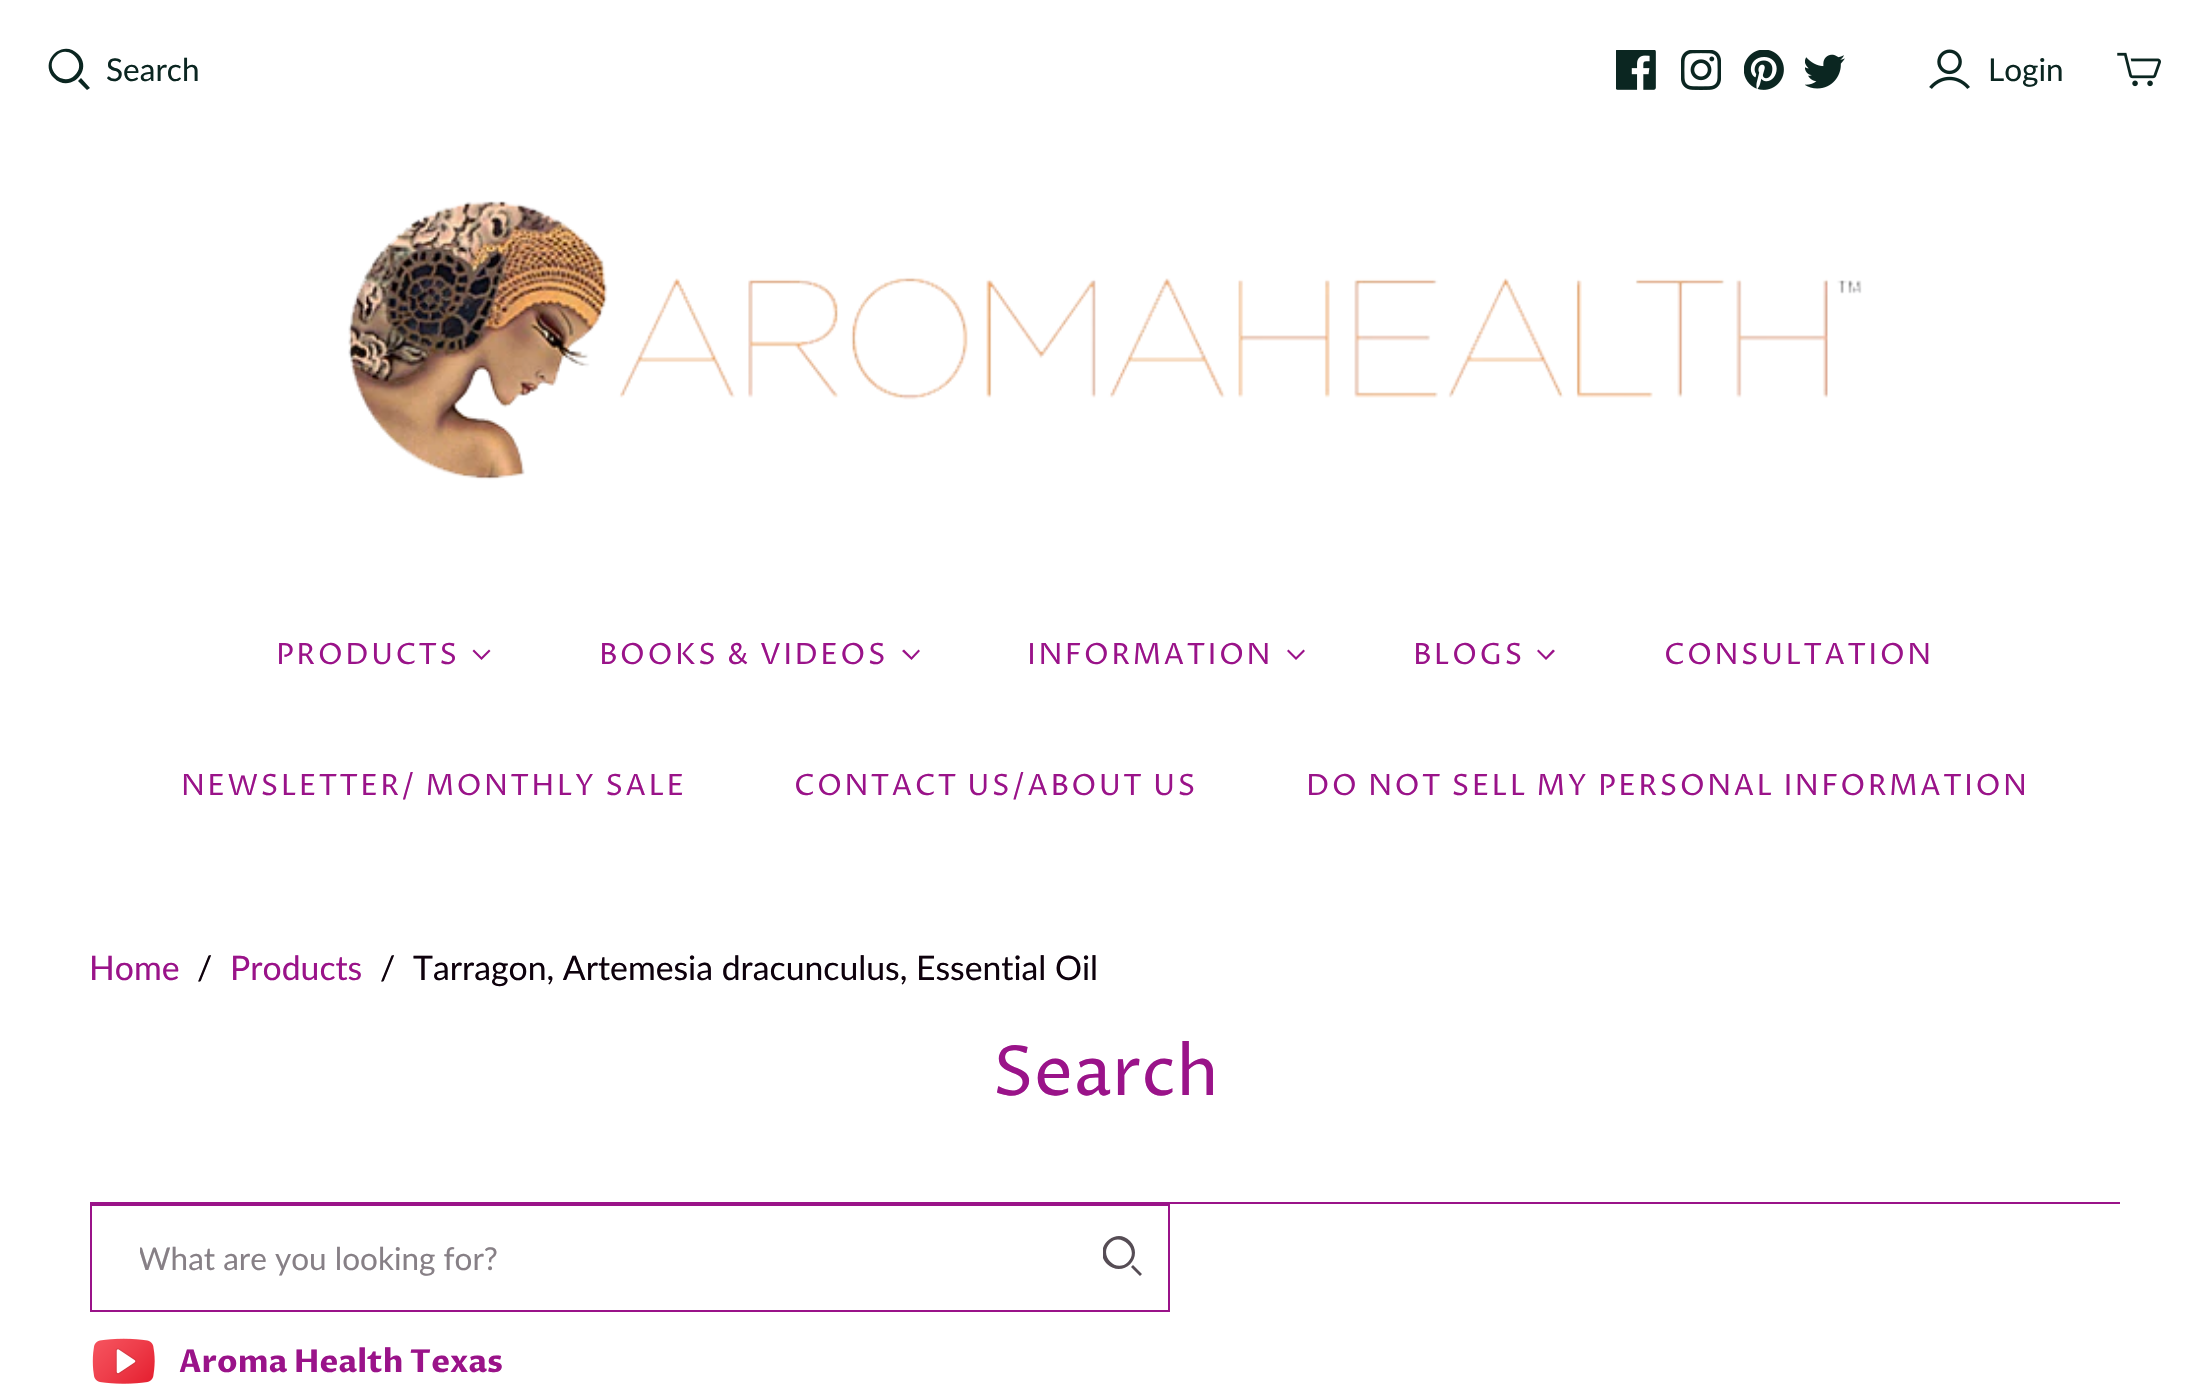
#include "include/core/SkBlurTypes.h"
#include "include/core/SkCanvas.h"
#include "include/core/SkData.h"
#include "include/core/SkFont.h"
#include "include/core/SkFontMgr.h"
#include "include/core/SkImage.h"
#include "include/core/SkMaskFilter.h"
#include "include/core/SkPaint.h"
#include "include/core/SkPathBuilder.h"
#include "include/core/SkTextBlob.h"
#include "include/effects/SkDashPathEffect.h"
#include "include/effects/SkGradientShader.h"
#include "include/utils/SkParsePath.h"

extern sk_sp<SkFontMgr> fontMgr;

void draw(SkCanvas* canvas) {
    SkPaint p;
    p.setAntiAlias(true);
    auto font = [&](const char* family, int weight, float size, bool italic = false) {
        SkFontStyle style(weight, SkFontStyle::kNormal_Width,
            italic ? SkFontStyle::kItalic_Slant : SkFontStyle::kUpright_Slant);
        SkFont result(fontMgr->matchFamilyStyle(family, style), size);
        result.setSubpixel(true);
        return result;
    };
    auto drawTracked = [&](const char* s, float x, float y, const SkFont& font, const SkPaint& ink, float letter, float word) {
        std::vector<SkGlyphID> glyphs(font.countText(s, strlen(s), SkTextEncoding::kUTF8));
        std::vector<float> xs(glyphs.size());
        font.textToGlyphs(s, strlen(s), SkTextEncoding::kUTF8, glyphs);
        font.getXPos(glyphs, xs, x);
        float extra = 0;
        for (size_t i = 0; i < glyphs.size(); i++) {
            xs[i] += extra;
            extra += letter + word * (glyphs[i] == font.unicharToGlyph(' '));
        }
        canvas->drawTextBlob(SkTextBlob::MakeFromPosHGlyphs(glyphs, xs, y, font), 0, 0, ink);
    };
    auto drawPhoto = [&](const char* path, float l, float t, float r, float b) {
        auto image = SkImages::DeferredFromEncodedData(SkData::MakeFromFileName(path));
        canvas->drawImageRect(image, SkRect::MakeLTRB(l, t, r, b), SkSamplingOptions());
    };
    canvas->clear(0xFFFFFFFF);
    p.setColor(0xFF0B2621);
    canvas->drawPath(SkPathBuilder(SkPathFillType::kEvenOdd).moveTo(56, 56).cubicTo(43, 68, 63, 88, 75, 75).cubicTo(88, 63, 68, 43, 56, 56).close().moveTo(54, 78).cubicTo(38, 62, 62, 38, 78, 54).cubicTo(94, 70, 70, 94, 54, 78).close().moveTo(87, 90).lineTo(78, 81).lineTo(81, 78).lineTo(90, 88).close().detach(), p);
    auto font1 = font("Lato", 400, 31.5f);
    canvas->drawString("Search", 106, 81, font1, p);
    drawPhoto("media/1.png", 1616, 50, 1656, 90);
    drawPhoto("media/2.png", 1681, 50, 1721, 90);
    drawPhoto("media/3.png", 1744, 50, 1784, 90);
    drawPhoto("media/4.png", 1805, 54, 1845, 89);
    drawPhoto("media/5.png", 1929, 49, 1970, 89);
    canvas->drawString("Login", 1988, 81, font1, p);
    drawPhoto("media/6.png", 2117, 52, 2161, 87);
    drawPhoto("media/7.png", 348, 201, 1862, 480);
    auto font2 = font("Proza Libre", 400, 29.25f);
    p.setColor(0xFF9A1389);
    drawTracked("PRODUCTS", 276, 664, font2, p, 2.35f, 0);
    canvas->drawPath(SkPathBuilder().moveTo(472.5f, 651).lineTo(474, 649.5f).lineTo(481.5f, 657).lineTo(489, 649.5f).lineTo(490.5f, 651).lineTo(481.5f, 660).close().detach(), p);
    drawTracked("BOOKS & VIDEOS", 599, 664, font2, p, 2.35f, 0);
    canvas->drawPath(SkPathBuilder().moveTo(902, 651).lineTo(904, 649.5f).lineTo(911.5f, 657).lineTo(918.5f, 649.5f).lineTo(920, 651).lineTo(911.5f, 660).close().detach(), p);
    drawTracked("INFORMATION", 1027, 664, font2, p, 2.35f, 0);
    canvas->drawPath(SkPathBuilder().moveTo(1287, 651).lineTo(1288.5f, 649.5f).lineTo(1296, 657).lineTo(1303.5f, 649.5f).lineTo(1305, 651).lineTo(1296, 660).close().detach(), p);
    drawTracked("BLOGS", 1413, 664, font2, p, 2.35f, 0);
    canvas->drawPath(SkPathBuilder().moveTo(1537, 651).lineTo(1538.5f, 649.5f).lineTo(1546, 657).lineTo(1553, 649.5f).lineTo(1555, 651).lineTo(1546, 660).close().detach(), p);
    {
        const struct { const char* s; float x, y; } items[] = {
            {"CONSULTATION", 1664, 664},
            {"NEWSLETTER/ MONTHLY SALE", 181, 795},
            {"CONTACT US/ABOUT US", 794, 795},
            {"DO NOT SELL MY PERSONAL INFORMATION", 1306, 795},
        };
        for (auto [s, x, y] : items) {
            drawTracked(s, x, y, font2, p, 2.35f, 0);
        }
    }
    auto font3 = font("Lato", 400, 33.75f);
    canvas->drawString("Home", 89, 980, font3, p);
    p.setColor(0xFF0E010C);
    canvas->drawString("/", 197, 980, font3, p);
    p.setColor(0xFF9A1389);
    canvas->drawString("Products", 230, 980, font3, p);
    p.setColor(0xFF0E010C);
    canvas->drawString("/", 380, 980, font3, p);
    canvas->drawString("Tarragon, Artemesia dracunculus, Essential Oil", 413, 980, font3, p);
    p.setColor(0xFF9A1389);
    canvas->drawRect(SkRect::MakeLTRB(90, 1202, 2120, 1204), p);
    auto font4 = font("Proza Libre", 400, 69);
    canvas->drawString("Search", 992, 1095, font4, p);
    p.setStyle(SkPaint::kStroke_Style);
    p.setStrokeWidth(2);
    canvas->drawRect(SkRect::MakeLTRB(91, 1205, 1169, 1311), p);
    canvas->save();
    canvas->clipRect(SkRect::MakeLTRB(140, 1238, 1080, 1276));
    p.setStyle(SkPaint::kFill_Style);
    p.setColor(0xFF878086);
    canvas->drawString("What are you looking for?", 138, 1270, font1, p);
    canvas->restore();
    canvas->save();
    canvas->clipRect(SkRect::MakeLTRB(1103, 1235, 1143, 1278));
    p.setColor(0xFF564D55);
    canvas->drawPath(SkPathBuilder(SkPathFillType::kEvenOdd).moveTo(1110, 1243).cubicTo(1098, 1255, 1116, 1274, 1128, 1262).cubicTo(1140, 1250, 1121, 1232, 1110, 1243).close().moveTo(1107, 1264).cubicTo(1092, 1249, 1115, 1226, 1130, 1241).cubicTo(1145, 1257, 1123, 1279, 1107, 1264).close().moveTo(1140, 1276).lineTo(1131, 1267).lineTo(1133, 1265).lineTo(1142, 1274).close().detach(), p);
    canvas->restore();
    drawPhoto("media/8.png", 92, 1338, 155, 1384);
    auto font5 = font("Proza Libre", 700, 31.5f);
    p.setColor(0xFF9A1389);
    canvas->drawString("Aroma Health Texas", 179, 1372, font5, p);
}
